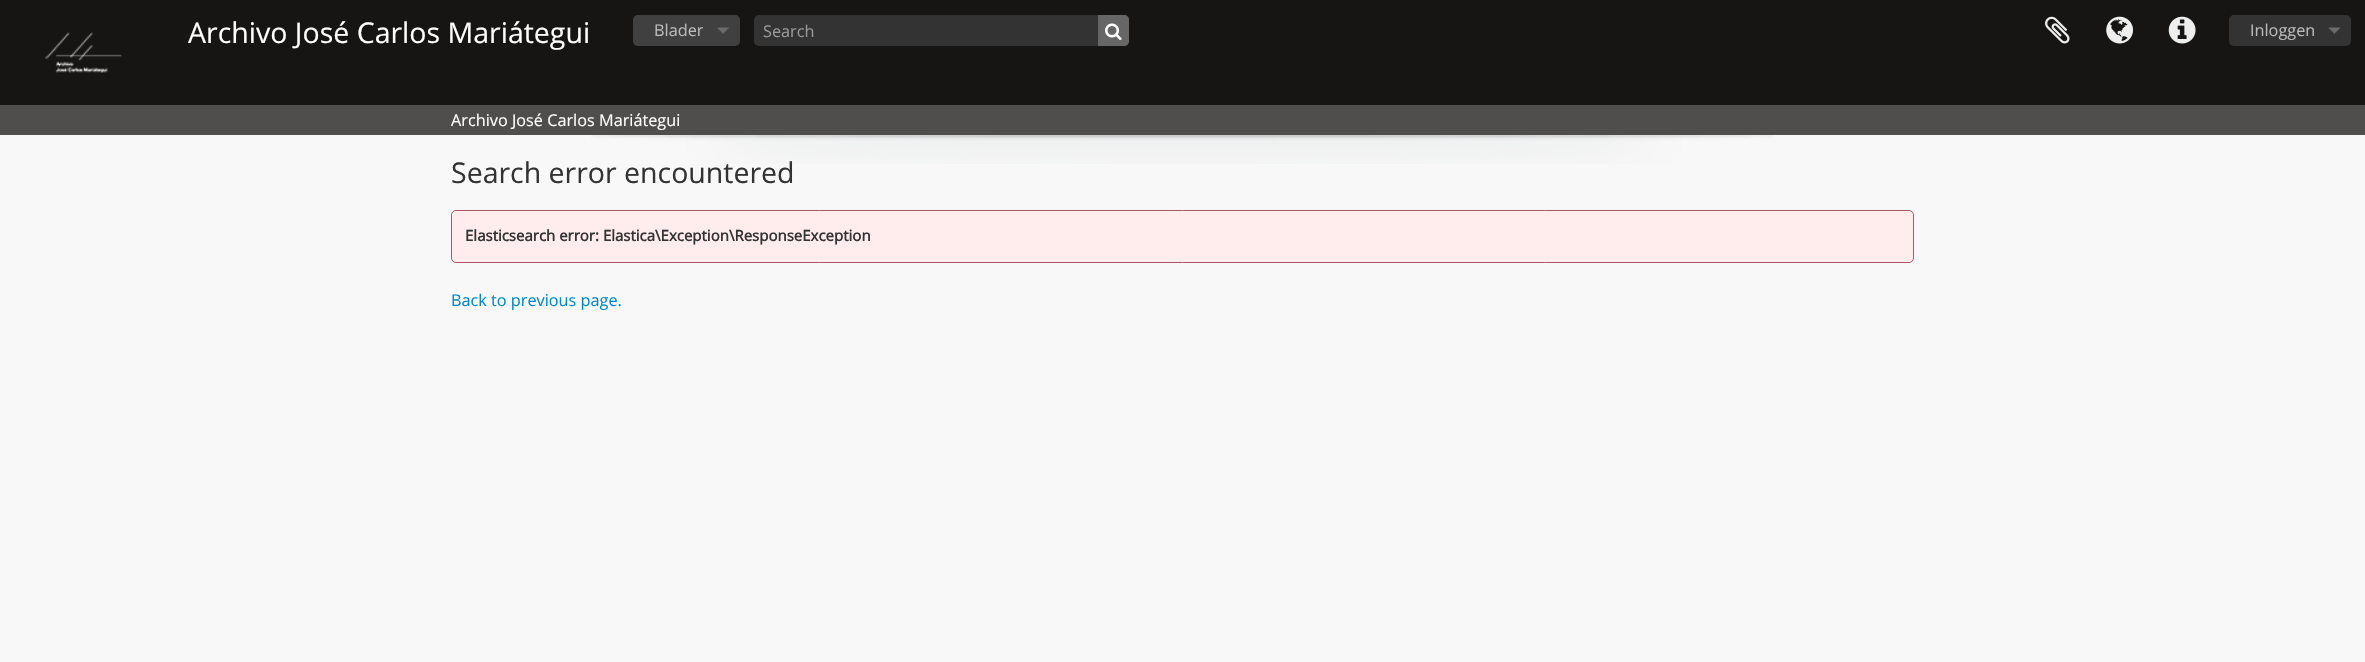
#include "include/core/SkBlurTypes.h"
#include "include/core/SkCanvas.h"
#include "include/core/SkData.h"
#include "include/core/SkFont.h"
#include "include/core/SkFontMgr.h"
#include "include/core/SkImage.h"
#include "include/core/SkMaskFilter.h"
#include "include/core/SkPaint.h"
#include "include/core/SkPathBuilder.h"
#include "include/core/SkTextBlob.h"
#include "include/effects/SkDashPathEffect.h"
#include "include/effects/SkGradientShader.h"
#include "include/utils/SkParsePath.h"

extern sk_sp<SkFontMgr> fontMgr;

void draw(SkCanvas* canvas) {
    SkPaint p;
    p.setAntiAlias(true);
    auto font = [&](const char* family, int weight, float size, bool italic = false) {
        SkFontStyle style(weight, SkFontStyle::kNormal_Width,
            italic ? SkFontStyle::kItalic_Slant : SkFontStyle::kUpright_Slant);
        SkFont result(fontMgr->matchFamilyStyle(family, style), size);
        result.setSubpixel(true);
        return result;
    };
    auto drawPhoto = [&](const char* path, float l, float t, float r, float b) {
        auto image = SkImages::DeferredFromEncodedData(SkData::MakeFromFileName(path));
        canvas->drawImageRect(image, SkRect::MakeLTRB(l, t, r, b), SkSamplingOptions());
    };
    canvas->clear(0xFFF8F8F8);
    p.setColor(0xFF161514);
    canvas->drawRect(SkRect::MakeLTRB(0, 0, 2365, 105), p);
    drawPhoto("media/1.png", 45, 32, 122, 73);
    auto font1 = font("Open Sans", 400, 28.5f);
    p.setColor(0xFFFFFFFF);
    canvas->drawString("Archivo José Carlos Mariátegui", 188, 43, font1, p);
    p.setColor(0xFF404040);
    canvas->drawRoundRect(SkRect::MakeLTRB(633, 15, 740, 46), 5, 5, p);
    drawPhoto("media/2.png", 717, 27, 729, 34);
    auto font2 = font("Open Sans", 400, 16.25f);
    p.setColor(0xFFBBBBBB);
    canvas->drawString("Blader", 654, 36, font2, p);
    p.setColor(0xFF333333);
    canvas->drawRoundRect(SkRect::MakeLTRB(754, 15, 1129, 46), 5, 5, p);
    p.setColor(0x12000000);
    canvas->drawPath(SkPathBuilder().moveTo(759, 16).lineTo(1124, 16).cubicTo(1127, 16, 1129, 18, 1129, 21).lineTo(1129, 20).cubicTo(1129, 17, 1127, 15, 1124, 15).lineTo(759, 15).cubicTo(756, 15, 754, 17, 754, 20).lineTo(754, 21).cubicTo(754, 18, 756, 16, 759, 16).close().detach(), p);
    p.setColor(0xFF999999);
    canvas->drawString("Search", 763, 37, font2, p);
    p.setColor(0xFF666666);
    canvas->drawPath(SkPathBuilder().moveTo(1098, 15).lineTo(1124, 15).cubicTo(1127, 15, 1129, 17, 1129, 20).lineTo(1129, 41).cubicTo(1129, 44, 1127, 46, 1124, 46).lineTo(1098, 46).close().detach(), p);
    drawPhoto("media/3.png", 1105, 23, 1122, 40);
    drawPhoto("media/4.png", 2045, 16, 2070, 44);
    drawPhoto("media/5.png", 2106, 16, 2133, 44);
    drawPhoto("media/6.png", 2168, 16, 2196, 44);
    p.setColor(0xFF333333);
    canvas->drawRoundRect(SkRect::MakeLTRB(2229, 15, 2351, 46), 5, 5, p);
    drawPhoto("media/7.png", 2328, 27, 2341, 34);
    p.setColor(0xFFBBBBBB);
    canvas->drawString("Inloggen", 2250, 36, font2, p);
    p.setColor(0xFF4F4E4D);
    canvas->drawRect(SkRect::MakeLTRB(0, 105, 2365, 135), p);
    p.setColor(0xFFFFFFFF);
    canvas->drawString("Archivo José Carlos Mariátegui", 451, 126, font2, p);
    drawPhoto("media/8.png", 591, 135, 1774, 164);
    p.setColor(0xFF333333);
    canvas->drawString("Search error encountered", 451, 183, font1, p);
    p.setColor(0xFFFFEDED);
    canvas->drawRoundRect(SkRect::MakeLTRB(451.5f, 210.5f, 1913.5f, 262.5f), 4.5f, 4.5f, p);
    p.setStyle(SkPaint::kStroke_Style);
    p.setStrokeWidth(1);
    p.setColor(0xFFAC5562);
    canvas->drawRoundRect(SkRect::MakeLTRB(451.5f, 210.5f, 1913.5f, 262.5f), 4.5f, 4.5f, p);
    auto font3 = font("Open Sans", 700, 15);
    p.setStyle(SkPaint::kFill_Style);
    p.setColor(0xFF333333);
    canvas->drawString("Elasticsearch error: Elastica\\Exception\\ResponseException", 465, 241, font3, p);
    p.setColor(0xFF0088CC);
    canvas->drawString("Back to previous page.", 451, 306, font2, p);
}
